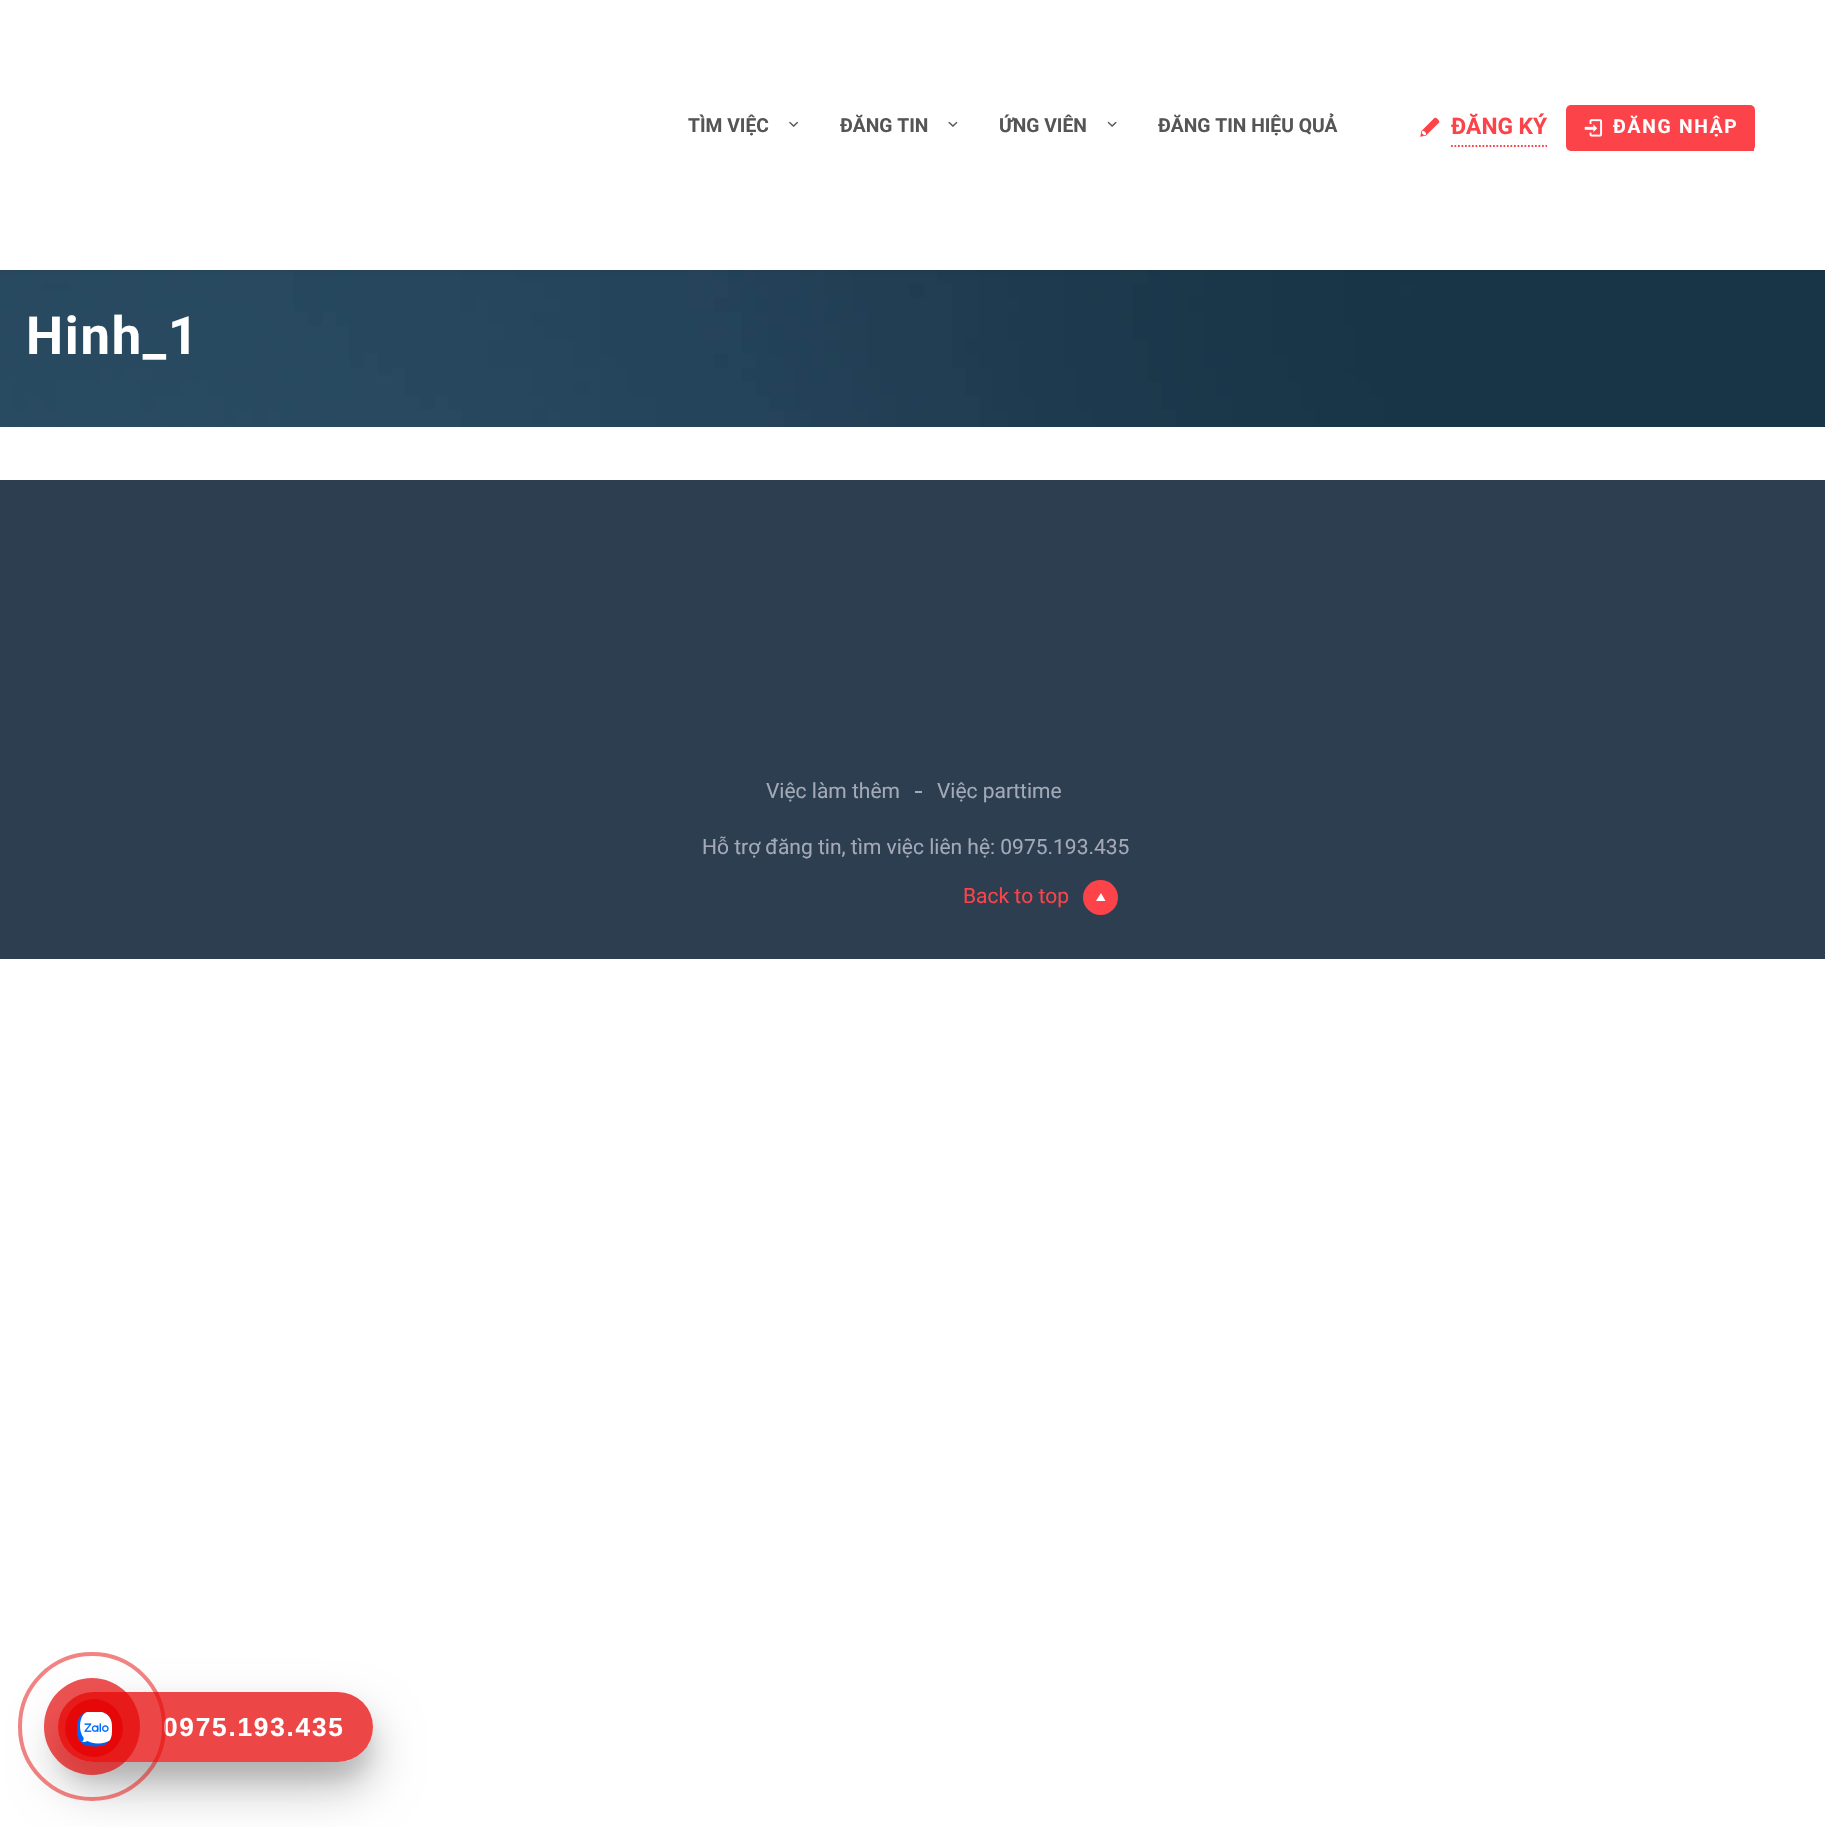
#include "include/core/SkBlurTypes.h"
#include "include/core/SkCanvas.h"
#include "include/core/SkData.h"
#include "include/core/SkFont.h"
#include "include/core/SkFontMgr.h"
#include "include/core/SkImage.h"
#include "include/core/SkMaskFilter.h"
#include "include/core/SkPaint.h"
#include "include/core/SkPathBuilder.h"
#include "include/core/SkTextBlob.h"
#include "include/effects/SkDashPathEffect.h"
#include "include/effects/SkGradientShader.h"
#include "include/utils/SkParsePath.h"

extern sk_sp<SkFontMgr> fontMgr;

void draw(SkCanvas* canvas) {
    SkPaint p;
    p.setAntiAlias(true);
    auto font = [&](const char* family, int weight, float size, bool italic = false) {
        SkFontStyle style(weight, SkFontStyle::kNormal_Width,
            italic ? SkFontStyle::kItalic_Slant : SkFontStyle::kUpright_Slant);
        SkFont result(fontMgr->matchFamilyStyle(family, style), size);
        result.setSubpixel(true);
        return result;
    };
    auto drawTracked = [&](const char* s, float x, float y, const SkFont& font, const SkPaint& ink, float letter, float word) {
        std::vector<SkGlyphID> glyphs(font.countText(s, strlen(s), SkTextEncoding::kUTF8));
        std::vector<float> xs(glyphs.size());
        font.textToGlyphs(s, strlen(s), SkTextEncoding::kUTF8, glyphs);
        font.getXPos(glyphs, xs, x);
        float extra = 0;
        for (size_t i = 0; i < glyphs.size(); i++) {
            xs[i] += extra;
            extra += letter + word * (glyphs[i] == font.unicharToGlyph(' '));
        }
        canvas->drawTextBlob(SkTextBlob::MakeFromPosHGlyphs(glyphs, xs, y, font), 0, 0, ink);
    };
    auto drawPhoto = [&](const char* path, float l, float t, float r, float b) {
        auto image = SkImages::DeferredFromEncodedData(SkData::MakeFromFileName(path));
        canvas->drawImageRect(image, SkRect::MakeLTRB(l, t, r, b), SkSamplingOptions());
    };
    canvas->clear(0xFFFFFFFF);
    drawPhoto("media/6.png", 0, 270, 1825, 427);
    p.setColor(0x1A000000);
    p.setMaskFilter(SkMaskFilter::MakeBlur(kNormal_SkBlurStyle, 2.5f));
    canvas->drawRect(SkRect::MakeLTRB(0, 0, 1825, 270), p);
    p.setMaskFilter(nullptr);
    p.setColor(0xFFFFFFFF);
    canvas->drawRect(SkRect::MakeLTRB(0, 0, 1825, 270), p);
    auto font1 = font("Roboto", 700, 19.25f);
    p.setColor(0xFF555555);
    canvas->drawString("TÌM VIỆC", 688, 132, font1, p);
    drawPhoto("media/1.png", 789, 121, 798, 127);
    canvas->drawString("ĐĂNG TIN", 840, 132, font1, p);
    drawPhoto("media/2.png", 948, 121, 958, 127);
    canvas->drawString("ỨNG VIÊN", 999, 132, font1, p);
    drawPhoto("media/3.png", 1107, 121, 1117, 127);
    canvas->drawString("ĐĂNG TIN HIỆU QUẢ", 1158, 132, font1, p);
    drawPhoto("media/4.png", 1420, 117, 1440, 137);
    p.setStyle(SkPaint::kStroke_Style);
    p.setStrokeWidth(1.8f);
    p.setColor(0xFFFC4349);
    p.setPathEffect(SkDashPathEffect::Make({{1.75f, 1.75f}}, 0));
    canvas->drawPath(SkPathBuilder().moveTo(1451, 146).lineTo(1547, 146).detach(), p);
    p.setPathEffect(nullptr);
    auto font2 = font("Roboto", 700, 22.75f);
    p.setStyle(SkPaint::kFill_Style);
    canvas->drawString("ĐĂNG KÝ", 1451, 134, font2, p);
    canvas->drawRoundRect(SkRect::MakeLTRB(1566, 105, 1755, 151), 5, 5, p);
    canvas->drawRect(SkRect::MakeLTRB(1570, 149, 1754, 151), p);
    drawPhoto("media/5.png", 1584, 119, 1603, 137);
    p.setColor(0xFFFFFFFF);
    drawTracked("ĐĂNG NHẬP", 1613, 133, font1, p, 1.75f, 0);
    auto font3 = font("Roboto", 700, 52.5f);
    drawTracked("Hinh_1", 26, 354, font3, p, 1.75f, 0);
    p.setColor(0xFF2C3E50);
    canvas->drawRect(SkRect::MakeLTRB(0, 480, 1825, 959), p);
    auto font4 = font("Roboto", 400, 21);
    p.setColor(0xFFA4A9B8);
    canvas->drawString("Việc làm thêm", 766, 798, font4, p);
    canvas->drawRect(SkRect::MakeLTRB(915, 791, 922, 793), p);
    canvas->drawString("Việc parttime", 937, 798, font4, p);
    canvas->drawString("Hỗ trợ đăng tin, tìm việc liên hệ: 0975.193.435", 702, 854, font4, p);
    p.setColor(0xFFFC4349);
    canvas->drawString("Back to top", 963, 903, font4, p);
    canvas->drawCircle(1100.5f, 897.5f, 17.5f, p);
    p.setColor(0xFFFFFFFF);
    canvas->drawPath(SkPathBuilder().moveTo(1096, 901).lineTo(1105.5f, 901).lineTo(1101, 893).close().detach(), p);
    canvas->save();
    canvas->clipPath(SkPathBuilder(SkPathFillType::kEvenOdd).moveTo(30, 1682).lineTo(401, 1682).lineTo(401, 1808).lineTo(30, 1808).close().moveTo(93, 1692).lineTo(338, 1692).cubicTo(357.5f, 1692, 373, 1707.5f, 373, 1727).cubicTo(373, 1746.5f, 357.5f, 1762, 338, 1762).lineTo(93, 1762).cubicTo(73.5f, 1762, 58, 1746.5f, 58, 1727).cubicTo(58, 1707.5f, 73.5f, 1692, 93, 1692).close().detach(), true);
    p.setColor(0x1A000000);
    p.setMaskFilter(SkMaskFilter::MakeBlur(kNormal_SkBlurStyle, 9));
    canvas->drawRoundRect(SkRect::MakeLTRB(58, 1710, 373, 1780), 35, 35, p);
    p.setMaskFilter(nullptr);
    canvas->restore();
    canvas->save();
    canvas->clipPath(SkPathBuilder(SkPathFillType::kEvenOdd).moveTo(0, 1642).lineTo(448, 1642).lineTo(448, 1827).lineTo(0, 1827).close().moveTo(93, 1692).lineTo(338, 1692).cubicTo(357.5f, 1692, 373, 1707.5f, 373, 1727).cubicTo(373, 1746.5f, 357.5f, 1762, 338, 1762).lineTo(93, 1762).cubicTo(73.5f, 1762, 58, 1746.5f, 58, 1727).cubicTo(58, 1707.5f, 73.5f, 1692, 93, 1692).close().detach(), true);
    p.setColor(0x40000000);
    p.setMaskFilter(SkMaskFilter::MakeBlur(kNormal_SkBlurStyle, 24.5f));
    canvas->drawRoundRect(SkRect::MakeLTRB(58, 1717, 373, 1787), 35, 35, p);
    p.setMaskFilter(nullptr);
    canvas->restore();
    p.setColor(0xBFE60808);
    canvas->drawRoundRect(SkRect::MakeLTRB(58, 1692, 373, 1762), 35, 35, p);
    auto font5 = font("Liberation Sans", 700, 26.25f);
    p.setColor(0xFFFFFFFF);
    drawTracked("0975.193.435", 163, 1736, font5, p, 1.75f, 0);
    p.setStyle(SkPaint::kStroke_Style);
    p.setStrokeWidth(4);
    p.setColor(0x80E60808);
    canvas->drawRoundRect(SkRect::MakeLTRB(20, 1654, 164, 1799), 72, 72, p);
    p.setStyle(SkPaint::kFill_Style);
    p.setColor(0xB3E60808);
    canvas->drawRoundRect(SkRect::MakeLTRB(44, 1678, 140, 1775), 48, 48, p);
    p.setColor(0xFFE60808);
    canvas->drawCircle(94, 1728, 29, p);
    drawPhoto("media/7.png", 77, 1712, 112, 1747);
}
